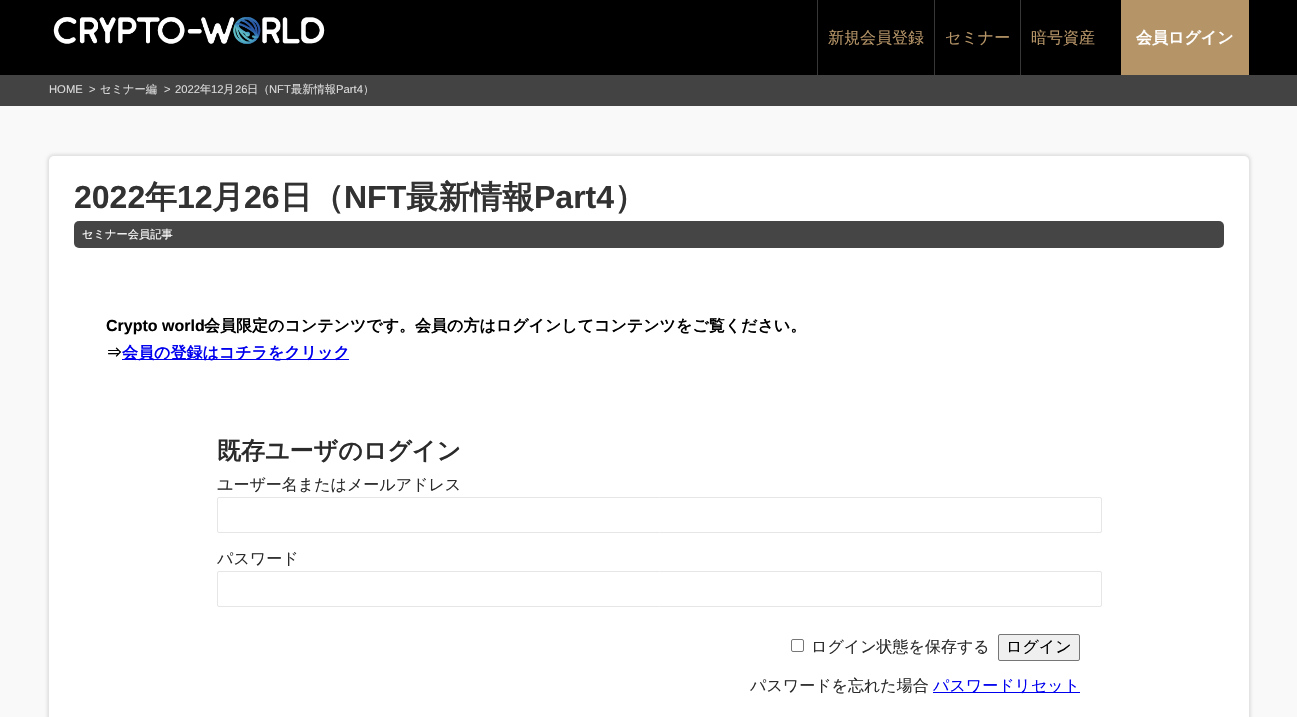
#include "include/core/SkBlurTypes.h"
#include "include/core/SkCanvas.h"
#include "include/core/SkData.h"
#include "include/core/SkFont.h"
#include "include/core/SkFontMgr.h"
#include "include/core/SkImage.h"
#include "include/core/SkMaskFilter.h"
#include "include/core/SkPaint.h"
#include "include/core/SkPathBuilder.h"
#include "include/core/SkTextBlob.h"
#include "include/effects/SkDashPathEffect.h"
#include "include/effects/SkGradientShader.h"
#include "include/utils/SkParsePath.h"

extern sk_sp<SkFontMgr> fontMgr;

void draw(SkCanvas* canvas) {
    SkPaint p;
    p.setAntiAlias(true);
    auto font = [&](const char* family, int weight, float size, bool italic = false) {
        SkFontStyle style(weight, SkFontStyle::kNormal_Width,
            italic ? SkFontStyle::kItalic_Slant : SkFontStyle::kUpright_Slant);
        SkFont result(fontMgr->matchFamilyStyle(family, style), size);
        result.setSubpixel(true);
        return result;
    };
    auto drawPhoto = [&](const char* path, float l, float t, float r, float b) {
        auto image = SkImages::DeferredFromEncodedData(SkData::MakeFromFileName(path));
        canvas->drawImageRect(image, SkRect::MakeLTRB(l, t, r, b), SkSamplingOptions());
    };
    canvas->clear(0xFFF9F9F9);
    p.setColor(0xFF000000);
    canvas->drawRect(SkRect::MakeLTRB(0, 0, 1297, 75), p);
    drawPhoto("media/1.png", 53, 17, 325, 44);
    p.setColor(0xFF373737);
    canvas->drawRect(SkRect::MakeLTRB(817, 0, 818, 75), p);
    auto font1 = font("WenQuanYi Zen Hei", 500, 16);
    p.setColor(0xFFB59467);
    canvas->drawString("新規会員登録", 828, 43, font1, p);
    p.setColor(0xFF373737);
    canvas->drawRect(SkRect::MakeLTRB(934, 0, 935, 75), p);
    p.setColor(0xFFB59467);
    canvas->drawString("セミナー", 945, 43, font1, p);
    p.setColor(0xFF373737);
    canvas->drawRect(SkRect::MakeLTRB(1020, 0, 1021, 75), p);
    p.setColor(0xFFB59467);
    canvas->drawString("暗号資産", 1031, 43, font1, p);
    canvas->drawRect(SkRect::MakeLTRB(1121, 0, 1249, 75), p);
    auto font2 = font("WenQuanYi Zen Hei", 700, 16);
    p.setColor(0xFFFFFFFF);
    canvas->drawString("会員ログイン", 1136, 43, font2, p);
    p.setColor(0xFF434343);
    canvas->drawRect(SkRect::MakeLTRB(0, 75, 1297, 106), p);
    auto font3 = font("Liberation Sans", 400, 11.25f);
    p.setColor(0xFFDBDBDB);
    canvas->drawString("HOME", 49, 93, font3, p);
    canvas->drawString(">", 89, 93, font3, p);
    auto font4 = font("WenQuanYi Zen Hei", 500, 11.25f);
    canvas->drawString("セミナー編", 100, 93, font4, p);
    canvas->drawString(">", 164, 93, font3, p);
    canvas->drawString("2022", 175, 93, font3, p);
    canvas->drawString("年", 200, 93, font4, p);
    canvas->drawString("12", 211, 93, font3, p);
    canvas->drawString("月", 223, 93, font4, p);
    canvas->drawString("26", 235, 93, font3, p);
    canvas->drawString("日（", 247, 93, font4, p);
    canvas->drawString("NFT", 269, 93, font3, p);
    canvas->drawString("最新情報", 291, 93, font4, p);
    canvas->drawString("Part4", 336, 93, font3, p);
    canvas->drawString("）", 363, 93, font4, p);
    p.setColor(0xFFE1E1E1);
    p.setMaskFilter(SkMaskFilter::MakeBlur(kNormal_SkBlurStyle, 1.5f));
    canvas->drawRoundRect(SkRect::MakeLTRB(47, 154, 1251, 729), 7, 7, p);
    p.setMaskFilter(nullptr);
    p.setColor(0xFFFFFFFF);
    canvas->drawRoundRect(SkRect::MakeLTRB(49, 156, 1249, 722), 5, 5, p);
    auto font5 = font("Liberation Sans", 700, 32);
    p.setColor(0xFF323232);
    canvas->drawString("2022", 74, 208, font5, p);
    auto font6 = font("WenQuanYi Zen Hei", 700, 32);
    canvas->drawString("年", 145, 208, font6, p);
    canvas->drawString("12", 177, 208, font5, p);
    canvas->drawString("月", 212, 208, font6, p);
    canvas->drawString("26", 244, 208, font5, p);
    canvas->drawString("日（", 280, 208, font6, p);
    canvas->drawString("NFT", 344, 208, font5, p);
    canvas->drawString("最新情報", 406, 208, font6, p);
    canvas->drawString("Part4", 534, 208, font5, p);
    canvas->drawString("）", 614, 208, font6, p);
    p.setColor(0xFF454545);
    canvas->drawRoundRect(SkRect::MakeLTRB(74, 221, 1224, 248), 5, 5, p);
    p.setColor(0xFFFFFFFF);
    canvas->drawString("セミナー会員記事", 82, 238, font4, p);
    auto font7 = font("Liberation Sans", 700, 16);
    p.setColor(0xFF000000);
    canvas->drawString("Crypto world", 106, 331, font7, p);
    canvas->drawString("会員限定のコンテンツです。会員の方はログインしてコンテンツをご覧ください。", 204, 331, font2, p);
    canvas->drawString("⇒", 106, 358, font2, p);
    p.setColor(0xFF0000EE);
    canvas->drawRect(SkRect::MakeLTRB(122, 359, 349, 360), p);
    canvas->drawString("会員の登録はコチラをクリック", 122, 358, font2, p);
    auto font8 = font("WenQuanYi Zen Hei", 700, 24);
    p.setColor(0xFF2B2B2B);
    canvas->drawString("既存ユーザのログイン", 217, 459, font8, p);
    canvas->drawString("ユーザー名またはメールアドレス", 217, 490, font1, p);
    p.setStyle(SkPaint::kStroke_Style);
    p.setStrokeWidth(1);
    p.setColor(0xFFE6E6E6);
    canvas->drawRoundRect(SkRect::MakeLTRB(217.5f, 497.5f, 1101.5f, 532.5f), 1.5f, 1.5f, p);
    p.setStyle(SkPaint::kFill_Style);
    p.setColor(0xFF2B2B2B);
    canvas->drawString("パスワード", 217, 564, font1, p);
    p.setStyle(SkPaint::kStroke_Style);
    p.setColor(0xFFE6E6E6);
    canvas->drawRoundRect(SkRect::MakeLTRB(217.5f, 571.5f, 1101.5f, 606.5f), 1.5f, 1.5f, p);
    p.setColor(0xFF767676);
    canvas->drawRoundRect(SkRect::MakeLTRB(791.5f, 639.5f, 803.5f, 651.5f), 1.5f, 1.5f, p);
    p.setStyle(SkPaint::kFill_Style);
    p.setColor(0xFF2B2B2B);
    canvas->drawString("ログイン状態を保存する", 811, 652, font1, p);
    p.setColor(0xFFEFEFEF);
    canvas->drawRoundRect(SkRect::MakeLTRB(998.5f, 634.5f, 1079.5f, 660.5f), 1.5f, 1.5f, p);
    p.setStyle(SkPaint::kStroke_Style);
    p.setColor(0xFF767676);
    canvas->drawRoundRect(SkRect::MakeLTRB(998.5f, 634.5f, 1079.5f, 660.5f), 1.5f, 1.5f, p);
    p.setStyle(SkPaint::kFill_Style);
    p.setColor(0xFF000000);
    canvas->drawString("ログイン", 1006, 652, font1, p);
    p.setColor(0xFF2B2B2B);
    canvas->drawString("パスワードを忘れた場合", 750, 691, font1, p);
    p.setColor(0xFF0000EE);
    canvas->drawRect(SkRect::MakeLTRB(933, 692, 1080, 693), p);
    canvas->drawString("パスワードリセット", 933, 691, font1, p);
}
